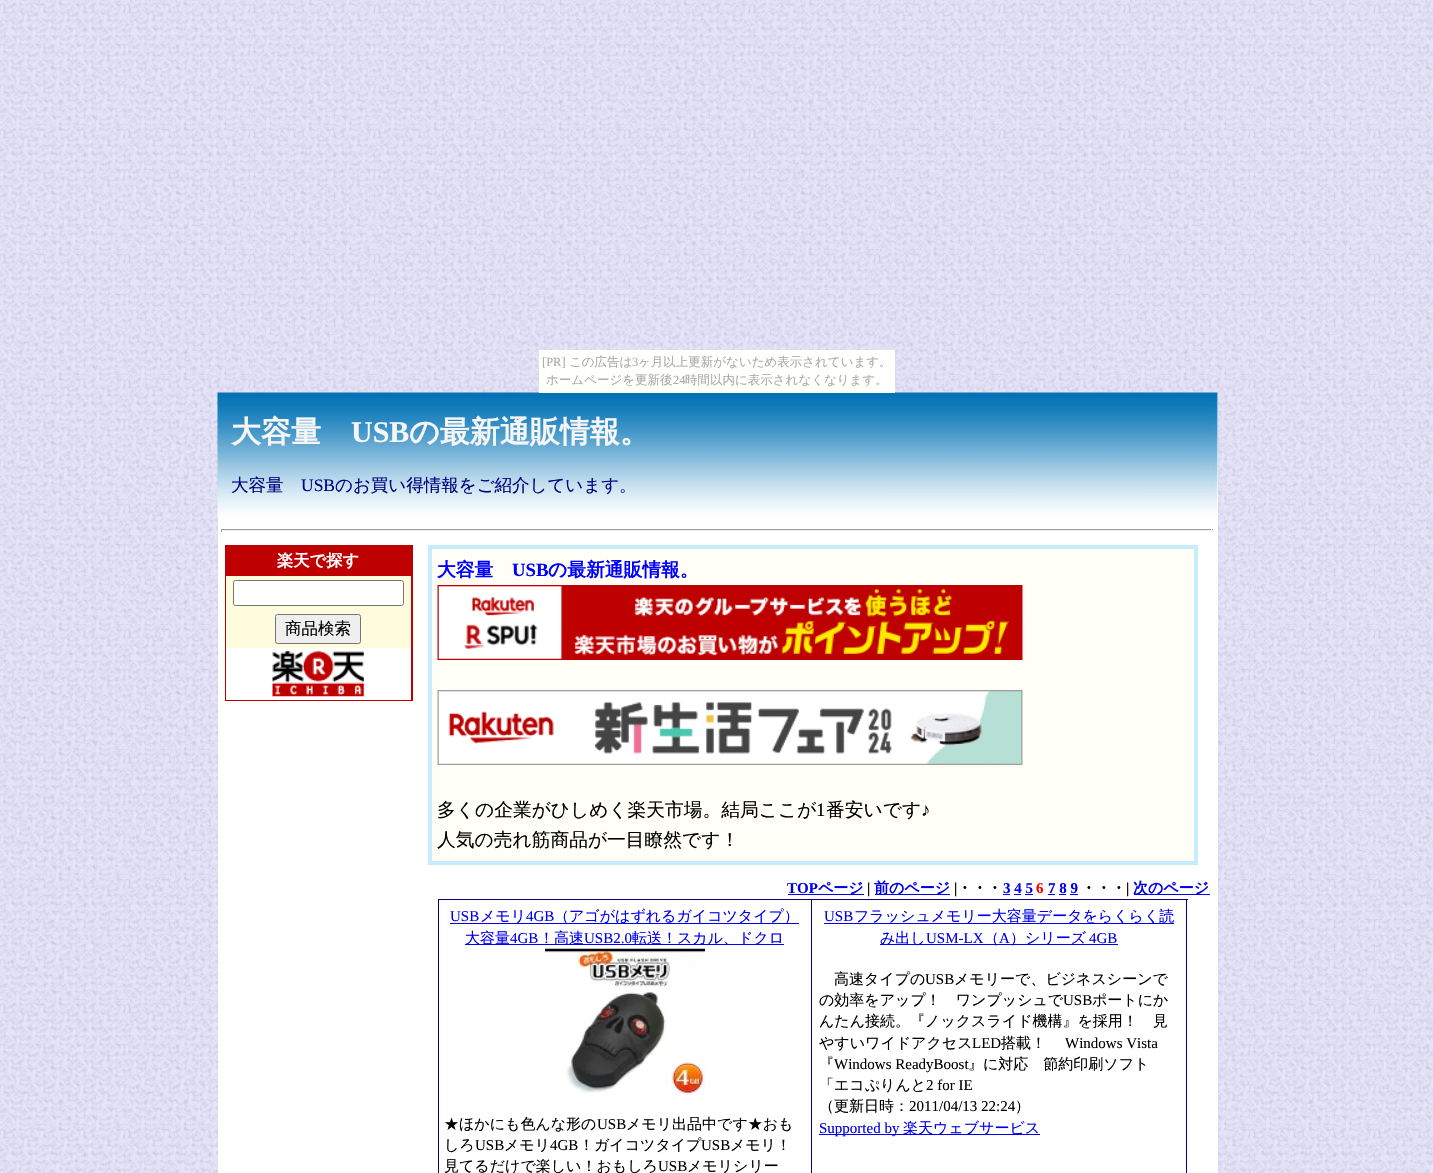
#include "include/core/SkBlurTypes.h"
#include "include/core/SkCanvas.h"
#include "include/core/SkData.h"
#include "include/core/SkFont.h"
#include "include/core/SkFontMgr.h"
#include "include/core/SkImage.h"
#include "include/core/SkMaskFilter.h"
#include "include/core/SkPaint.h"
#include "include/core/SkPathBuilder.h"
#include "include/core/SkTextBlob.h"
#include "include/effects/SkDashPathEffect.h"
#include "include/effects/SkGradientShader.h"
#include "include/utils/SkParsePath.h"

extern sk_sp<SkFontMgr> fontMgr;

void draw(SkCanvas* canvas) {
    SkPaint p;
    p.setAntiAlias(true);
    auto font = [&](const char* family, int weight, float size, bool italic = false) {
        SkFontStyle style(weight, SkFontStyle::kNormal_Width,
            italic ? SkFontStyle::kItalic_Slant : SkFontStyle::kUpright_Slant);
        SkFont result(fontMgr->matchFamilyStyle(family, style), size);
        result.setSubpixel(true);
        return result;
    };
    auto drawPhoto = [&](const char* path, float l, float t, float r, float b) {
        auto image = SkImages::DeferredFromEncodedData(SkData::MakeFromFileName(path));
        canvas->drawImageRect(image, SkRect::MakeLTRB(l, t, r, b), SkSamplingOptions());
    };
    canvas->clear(0xFFFFFFFF);
    drawPhoto("media/1.png", 0, 0, 1433, 1173);
    p.setColor(0xFFFFFFFF);
    canvas->drawRect(SkRect::MakeLTRB(218, 393, 1218, 1173), p);
    drawPhoto("media/2.png", 217, 392, 1218, 518);
    p.setColor(0xFFFFFFFC);
    canvas->drawRect(SkRect::MakeLTRB(539, 350, 895, 393), p);
    auto font1 = font("Liberation Serif", 400, 12.5f);
    p.setColor(0xFFAAAAAA);
    canvas->drawString("[PR]", 542, 366, font1, p);
    auto font2 = font("WenQuanYi Zen Hei", 500, 12.5f);
    canvas->drawString("この広告は", 569, 366, font2, p);
    canvas->drawString("3", 632, 366, font1, p);
    canvas->drawString("ヶ月以上更新がないため表示されています。", 638, 366, font2, p);
    canvas->drawString("ホームページを更新後", 546, 384, font2, p);
    canvas->drawString("24", 673, 384, font1, p);
    canvas->drawString("時間以内に表示されなくなります。", 685, 384, font2, p);
    auto font3 = font("WenQuanYi Zen Hei", 700, 30);
    p.setColor(0xFFF6F6F6);
    canvas->drawString("大容量", 231, 442, font3, p);
    auto font4 = font("Liberation Serif", 700, 30);
    canvas->drawString("USB", 351, 442, font4, p);
    canvas->drawString("の最新通販情報。", 409, 442, font3, p);
    auto font5 = font("WenQuanYi Zen Hei", 500, 17.5f);
    p.setColor(0xFF000080);
    canvas->drawString("大容量", 231, 491, font5, p);
    auto font6 = font("Liberation Serif", 400, 17.5f);
    canvas->drawString("USB", 301, 491, font6, p);
    canvas->drawString("のお買い得情報をご紹介しています。", 335, 491, font5, p);
    {
        const struct { float l, t, r, b; SkColor color; } items[] = {
            {221, 529, 1213, 530, 0xFF9F9F9F},
            {1211, 529, 1212, 532, 0xFFEEEEEE},
            {221, 530, 1213, 531, 0xFFEEEEEE},
            {221, 529, 222, 532, 0xFF9F9F9F},
            {225, 545, 413, 701, 0xFFBF0000},
            {226, 648, 411, 700, 0xFFFFFFFF},
        };
        for (auto [l, t, r, b, color] : items) {
            p.setColor(color);
            canvas->drawRect(SkRect::MakeLTRB(l, t, r, b), p);
        }
    }
    auto font7 = font("WenQuanYi Zen Hei", 700, 16.25f);
    canvas->drawString("楽天で探す", 277, 566, font7, p);
    p.setColor(0xFFFFFCDD);
    canvas->drawRect(SkRect::MakeLTRB(226, 576, 411, 648), p);
    p.setColor(0xFFFFFFFF);
    canvas->drawRoundRect(SkRect::MakeLTRB(233.5f, 580.5f, 403.5f, 605.5f), 2, 2, p);
    p.setStyle(SkPaint::kStroke_Style);
    p.setStrokeWidth(1);
    p.setColor(0xFF767676);
    canvas->drawRoundRect(SkRect::MakeLTRB(233.5f, 580.5f, 403.5f, 605.5f), 2, 2, p);
    p.setStyle(SkPaint::kFill_Style);
    p.setColor(0xFFEFEFEF);
    canvas->drawRoundRect(SkRect::MakeLTRB(275.5f, 614.5f, 360.5f, 643.5f), 2, 2, p);
    p.setStyle(SkPaint::kStroke_Style);
    p.setColor(0xFF767676);
    canvas->drawRoundRect(SkRect::MakeLTRB(275.5f, 614.5f, 360.5f, 643.5f), 2, 2, p);
    auto font8 = font("WenQuanYi Zen Hei", 500, 16.5f);
    p.setStyle(SkPaint::kFill_Style);
    p.setColor(0xFF000000);
    canvas->drawString("商品検索", 285, 634, font8, p);
    drawPhoto("media/3.png", 272, 651, 364, 697);
    p.setColor(0xFFFFFFF7);
    canvas->drawRect(SkRect::MakeLTRB(430, 547, 1196, 863), p);
    p.setStyle(SkPaint::kStroke_Style);
    p.setStrokeWidth(4);
    p.setColor(0xFFC7ECFC);
    canvas->drawRect(SkRect::MakeLTRB(430, 547, 1196, 863), p);
    auto font9 = font("WenQuanYi Zen Hei", 700, 18.75f);
    p.setStyle(SkPaint::kFill_Style);
    p.setColor(0xFF0000FF);
    canvas->drawString("大容量", 437, 576, font9, p);
    auto font10 = font("Liberation Serif", 700, 18.75f);
    canvas->drawString("USB", 512, 576, font10, p);
    canvas->drawString("の最新通販情報。", 548, 576, font9, p);
    drawPhoto("media/4.png", 437, 585, 1023, 660);
    drawPhoto("media/5.png", 437, 690, 1023, 765);
    auto font11 = font("WenQuanYi Zen Hei", 500, 18.75f);
    p.setColor(0xFF000000);
    canvas->drawString("多くの企業がひしめく楽天市場。結局ここが", 437, 816, font11, p);
    auto font12 = font("Liberation Serif", 400, 18.75f);
    canvas->drawString("1", 816, 816, font12, p);
    canvas->drawString("番安いです", 826, 816, font11, p);
    canvas->drawString("♪", 921, 816, font12, p);
    canvas->drawString("人気の売れ筋商品が一目瞭然です！", 437, 846, font11, p);
    auto font13 = font("Liberation Serif", 700, 15);
    p.setColor(0xFF0000EE);
    canvas->drawString("TOP", 787, 893, font13, p);
    canvas->drawRect(SkRect::MakeLTRB(788, 894, 864, 895), p);
    auto font14 = font("WenQuanYi Zen Hei", 700, 15);
    canvas->drawString("ページ", 818, 893, font14, p);
    p.setColor(0xFF000000);
    canvas->drawString("|", 867, 893, font13, p);
    p.setColor(0xFF0000EE);
    canvas->drawRect(SkRect::MakeLTRB(875, 894, 950, 895), p);
    canvas->drawString("前のページ", 874, 893, font14, p);
    p.setColor(0xFF000000);
    canvas->drawString("|", 954, 893, font13, p);
    canvas->drawString("・・・", 957, 893, font14, p);
    p.setColor(0xFF0000EE);
    canvas->drawString("3 4 5", 1003, 893, font13, p);
    canvas->drawRect(SkRect::MakeLTRB(1003, 894, 1010, 895), p);
    p.setColor(0xFFFF0000);
    canvas->drawString("6", 1036, 893, font13, p);
    p.setColor(0xFF0000EE);
    canvas->drawString("7 8 9", 1048, 893, font13, p);
    canvas->drawRect(SkRect::MakeLTRB(1048, 894, 1055, 895), p);
    p.setColor(0xFF000000);
    canvas->drawString("・・・", 1081, 893, font14, p);
    canvas->drawString("|", 1126, 893, font13, p);
    p.setColor(0xFF0000EE);
    canvas->drawRect(SkRect::MakeLTRB(1134, 894, 1210, 895), p);
    canvas->drawString("次のページ", 1133, 893, font14, p);
    {
        const struct { float l, t, r, b; SkColor color; } items[] = {
            {1014, 894, 1021, 895, 0xFF0000EE},
            {1025, 894, 1033, 895, 0xFF0000EE},
            {1059, 894, 1066, 895, 0xFF0000EE},
            {1070, 894, 1078, 895, 0xFF0000EE},
            {438, 899, 1188, 900, 0xFF000080},
            {1186, 899, 1187, 1173, 0xFF000080},
            {438, 899, 439, 1173, 0xFF000080},
        };
        for (auto [l, t, r, b, color] : items) {
            p.setColor(color);
            canvas->drawRect(SkRect::MakeLTRB(l, t, r, b), p);
        }
    }
    auto font15 = font("Liberation Serif", 400, 15);
    p.setColor(0xFF0000EE);
    canvas->drawString("USB", 450, 921, font15, p);
    canvas->drawRect(SkRect::MakeLTRB(450, 923, 799, 924), p);
    auto font16 = font("WenQuanYi Zen Hei", 500, 15);
    canvas->drawString("メモリ", 480, 921, font16, p);
    canvas->drawString("4GB", 526, 921, font15, p);
    canvas->drawString("（アゴがはずれるガイコツタイプ）", 554, 921, font16, p);
    canvas->drawRect(SkRect::MakeLTRB(465, 944, 784, 945), p);
    canvas->drawString("大容量", 465, 943, font16, p);
    canvas->drawString("4GB", 510, 943, font15, p);
    canvas->drawString("！高速", 539, 943, font16, p);
    canvas->drawString("USB2.0", 584, 943, font15, p);
    canvas->drawString("転送！スカル、ドクロ", 632, 943, font16, p);
    drawPhoto("media/6.png", 545, 948, 705, 1095);
    p.setColor(0xFF000000);
    canvas->drawString("★ほかにも色んな形の", 444, 1129, font16, p);
    canvas->drawString("USB", 597, 1129, font15, p);
    canvas->drawString("メモリ出品中です★おも", 626, 1129, font16, p);
    canvas->drawString("しろ", 444, 1150, font16, p);
    canvas->drawString("USB", 475, 1150, font15, p);
    canvas->drawString("メモリ", 504, 1150, font16, p);
    canvas->drawString("4GB", 550, 1150, font15, p);
    canvas->drawString("！ガイコツタイプ", 579, 1150, font16, p);
    canvas->drawString("USB", 701, 1150, font15, p);
    canvas->drawString("メモリ！", 730, 1150, font16, p);
    canvas->drawString("見てるだけで楽しい！おもしろ", 444, 1171, font16, p);
    canvas->drawString("USB", 658, 1171, font15, p);
    canvas->drawString("メモリシリー", 687, 1171, font16, p);
    p.setColor(0xFF000080);
    canvas->drawRect(SkRect::MakeLTRB(811, 899, 812, 1173), p);
    p.setColor(0xFF0000EE);
    canvas->drawString("USB", 824, 921, font15, p);
    canvas->drawRect(SkRect::MakeLTRB(824, 923, 1174, 924), p);
    canvas->drawString("フラッシュメモリー大容量データをらくらく読", 854, 921, font16, p);
    canvas->drawRect(SkRect::MakeLTRB(880, 944, 1118, 945), p);
    canvas->drawString("み出し", 880, 943, font16, p);
    canvas->drawString("USM-LX", 926, 943, font15, p);
    canvas->drawString("（", 984, 943, font16, p);
    canvas->drawString("A", 999, 943, font15, p);
    canvas->drawString("）シリーズ", 1010, 943, font16, p);
    canvas->drawString("4GB", 1089, 943, font15, p);
    p.setColor(0xFF000000);
    canvas->drawString("高速タイプの", 834, 984, font16, p);
    canvas->drawString("USB", 925, 984, font15, p);
    canvas->drawString("メモリーで、ビジネスシーンで", 954, 984, font16, p);
    canvas->drawString("の効率をアップ！　ワンプッシュで", 819, 1005, font16, p);
    canvas->drawString("USB", 1063, 1005, font15, p);
    {
        const struct { const char* s; float x, y; } items[] = {
            {"ポートにか", 1092, 1005},
            {"んたん接続。『ノックスライド機構』を採用！　見", 819, 1026},
            {"やすいワイドアクセス", 819, 1048},
        };
        for (auto [s, x, y] : items) {
            canvas->drawString(s, x, y, font16, p);
        }
    }
    canvas->drawString("LED", 972, 1048, font15, p);
    canvas->drawString("搭載！", 1001, 1048, font16, p);
    canvas->drawString("Windows Vista", 1065, 1048, font15, p);
    canvas->drawString("『", 819, 1069, font16, p);
    canvas->drawString("Windows ReadyBoost", 834, 1069, font15, p);
    canvas->drawString("』に対応　節約印刷ソフト", 968, 1069, font16, p);
    canvas->drawString("「エコぷりんと", 819, 1090, font16, p);
    canvas->drawString("2 for IE", 926, 1090, font15, p);
    canvas->drawString("（更新日時：", 819, 1111, font16, p);
    canvas->drawString("2011/04/13 22:24", 909, 1111, font15, p);
    canvas->drawString("）", 1015, 1111, font16, p);
    p.setColor(0xFF0000EE);
    canvas->drawRect(SkRect::MakeLTRB(819, 1134, 1040, 1135), p);
    canvas->drawString("Supported by", 819, 1133, font15, p);
    canvas->drawString("楽天ウェブサービス", 903, 1133, font16, p);
}
